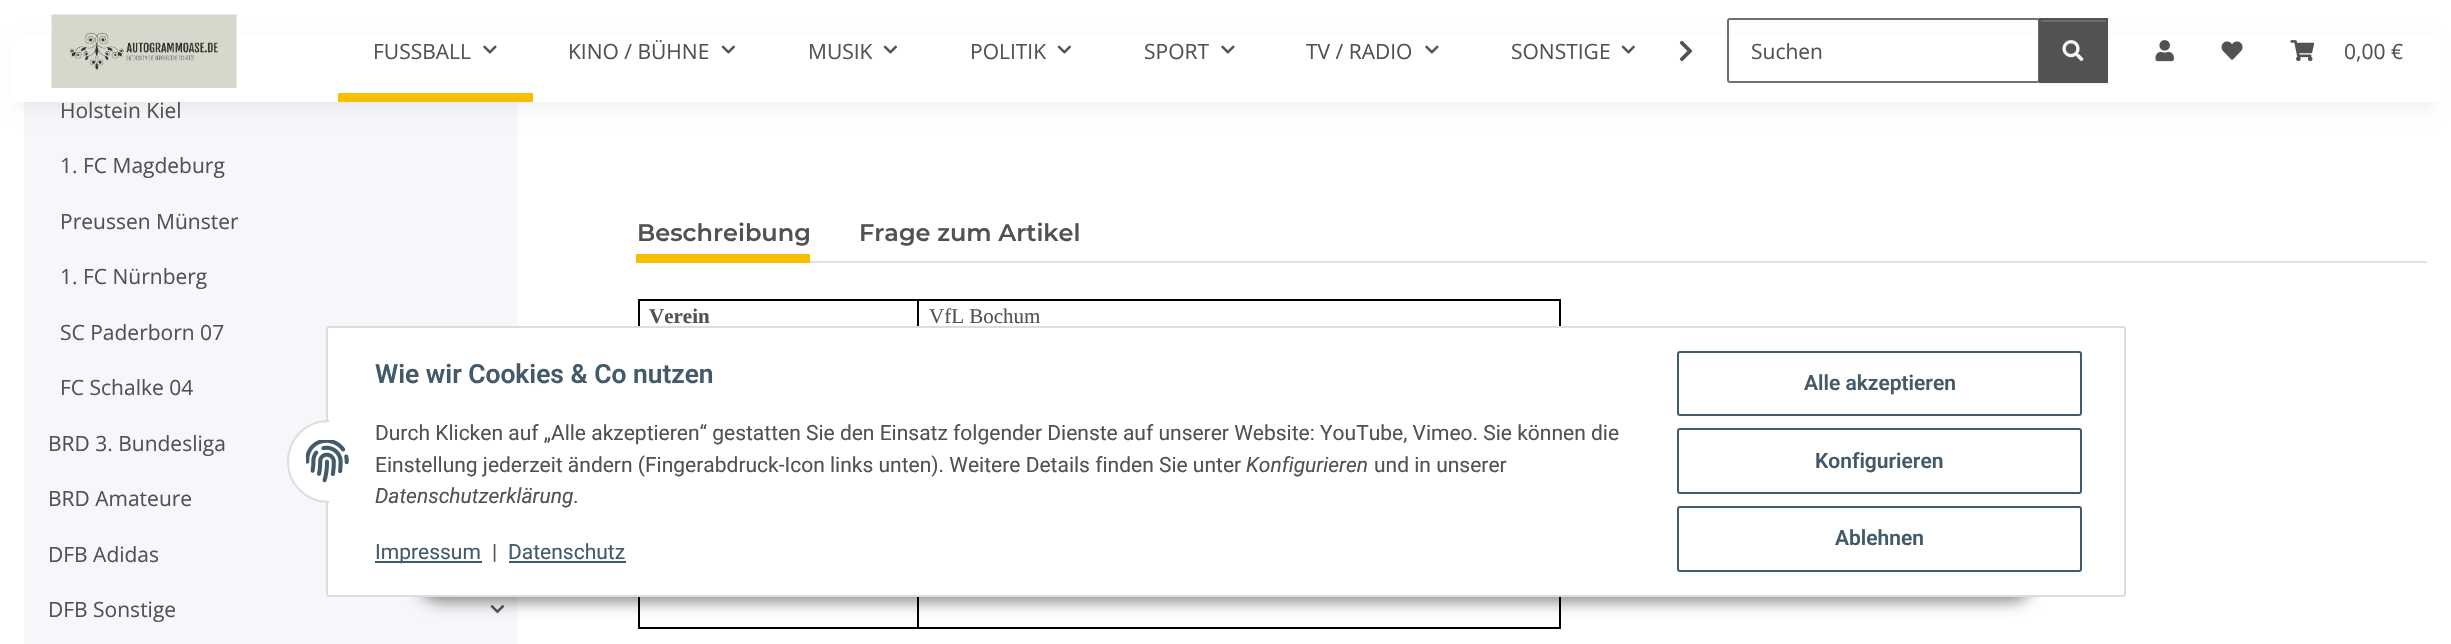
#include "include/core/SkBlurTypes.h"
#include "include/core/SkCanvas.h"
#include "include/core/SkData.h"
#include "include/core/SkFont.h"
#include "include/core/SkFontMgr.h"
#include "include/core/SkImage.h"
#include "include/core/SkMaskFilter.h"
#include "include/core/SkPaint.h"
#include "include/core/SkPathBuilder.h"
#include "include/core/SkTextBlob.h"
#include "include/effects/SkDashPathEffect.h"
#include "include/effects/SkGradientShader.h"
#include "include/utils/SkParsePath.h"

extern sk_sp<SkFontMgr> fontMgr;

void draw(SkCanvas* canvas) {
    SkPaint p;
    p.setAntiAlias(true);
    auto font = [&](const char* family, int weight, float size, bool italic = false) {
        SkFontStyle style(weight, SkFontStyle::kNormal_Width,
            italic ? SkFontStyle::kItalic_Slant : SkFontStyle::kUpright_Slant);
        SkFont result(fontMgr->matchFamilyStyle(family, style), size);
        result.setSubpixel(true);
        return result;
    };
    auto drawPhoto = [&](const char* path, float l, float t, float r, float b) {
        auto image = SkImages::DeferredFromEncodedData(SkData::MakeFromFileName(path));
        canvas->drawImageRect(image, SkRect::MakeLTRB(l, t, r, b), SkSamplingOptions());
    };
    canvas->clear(0xFFFFFFFF);
    p.setColor(0xFFF5F7FA);
    canvas->drawRect(SkRect::MakeLTRB(24, 102, 518, 644), p);
    p.setColor(0x0F000000);
    p.setMaskFilter(SkMaskFilter::MakeBlur(kNormal_SkBlurStyle, 7));
    canvas->drawRect(SkRect::MakeLTRB(18, 42, 2433, 108), p);
    p.setMaskFilter(nullptr);
    p.setColor(0xFFFFFFFF);
    canvas->drawRect(SkRect::MakeLTRB(11, 35, 2440, 102), p);
    drawPhoto("media/1.png", 51, 14, 237, 88);
    auto font1 = font("Open Sans", 400, 21);
    p.setColor(0xFF525252);
    canvas->drawString("FUSSBALL", 373, 59, font1, p);
    drawPhoto("media/2.png", 483, 45, 497, 54);
    p.setColor(0xFFF8BF00);
    canvas->drawRect(SkRect::MakeLTRB(338, 93, 533, 102), p);
    p.setColor(0xFF525252);
    canvas->drawString("KINO / BÜHNE", 568, 59, font1, p);
    drawPhoto("media/3.png", 721, 45, 735, 54);
    canvas->drawString("MUSIK", 808, 59, font1, p);
    drawPhoto("media/3.png", 883, 45, 897, 54);
    canvas->drawString("POLITIK", 970, 59, font1, p);
    drawPhoto("media/3.png", 1057, 45, 1071, 54);
    canvas->drawString("SPORT", 1144, 59, font1, p);
    drawPhoto("media/2.png", 1221, 45, 1235, 54);
    canvas->drawString("TV / RADIO", 1306, 59, font1, p);
    drawPhoto("media/2.png", 1425, 45, 1439, 54);
    canvas->drawString("SONSTIGE", 1511, 59, font1, p);
    drawPhoto("media/3.png", 1621, 45, 1635, 54);
    {
        const SkColor colors[] = {0x03FFFFFF, 0xFFFFFFFF};
        const float stops[] = {0, 0.7f};
        const SkPoint ends[] = {{1631, 51}, {1703, 51}};
        p.setShader(SkGradientShader::MakeLinear(ends, colors, stops, 2, SkTileMode::kClamp));
        p.setAlpha(255);
    }
    canvas->drawRect(SkRect::MakeLTRB(1632, 45, 1635, 50), p);
    drawPhoto("media/4.png", 1679, 40, 1693, 62);
    p.setStyle(SkPaint::kStroke_Style);
    p.setStrokeWidth(2);
    p.setShader(nullptr);
    p.setColor(0xFF707070);
    canvas->drawRoundRect(SkRect::MakeLTRB(1728, 19, 2039, 82), 2, 2, p);
    p.setStyle(SkPaint::kFill_Style);
    p.setColor(0xFF525252);
    canvas->drawString("Suchen", 1751, 59, font1, p);
    p.setColor(0x12000000);
    p.setMaskFilter(SkMaskFilter::MakeBlur(kNormal_SkBlurStyle, 1));
    canvas->drawRect(SkRect::MakeLTRB(2039, 20, 2108, 84), p);
    p.setMaskFilter(nullptr);
    p.setColor(0xFF525252);
    canvas->drawRect(SkRect::MakeLTRB(2041, 22, 2106, 81), p);
    p.setColor(0xFF6C6C6C);
    canvas->drawRect(SkRect::MakeLTRB(2040, 20, 2106, 22), p);
    p.setStyle(SkPaint::kStroke_Style);
    p.setColor(0xFF525252);
    canvas->drawRect(SkRect::MakeLTRB(2040, 19, 2107, 82), p);
    drawPhoto("media/5.png", 2062, 40, 2084, 62);
    drawPhoto("media/6.png", 2155, 40, 2174, 62);
    drawPhoto("media/7.png", 2221, 41, 2243, 60);
    drawPhoto("media/8.png", 2290, 40, 2315, 62);
    p.setStyle(SkPaint::kFill_Style);
    {
        const struct { const char* s; float x, y; } items[] = {
            {"0,00 €", 2344, 59},
            {"Holstein Kiel", 60, 118},
            {"1. FC Magdeburg", 60, 173},
            {"Preussen Münster", 60, 229},
            {"1. FC Nürnberg", 60, 284},
            {"SC Paderborn 07", 60, 340},
            {"FC Schalke 04", 60, 395},
            {"BRD 3. Bundesliga", 48, 451},
            {"BRD Amateure", 48, 506},
            {"DFB Adidas", 48, 562},
            {"DFB Sonstige", 48, 617},
        };
        for (auto [s, x, y] : items) {
            canvas->drawString(s, x, y, font1, p);
        }
    }
    drawPhoto("media/9.png", 490, 605, 504, 614);
    p.setColor(0xFFDEE2E6);
    canvas->drawRect(SkRect::MakeLTRB(810, 261, 2427, 263), p);
    auto font2 = font("Montserrat", 600, 24);
    p.setColor(0xFF525252);
    canvas->drawString("Beschreibung", 637, 241, font2, p);
    p.setColor(0xFFF8BF00);
    canvas->drawRect(SkRect::MakeLTRB(636, 254, 810, 263), p);
    p.setColor(0xFF525252);
    canvas->drawString("Frage zum Artikel", 859, 241, font2, p);
    {
        const struct { float l, t, r, b; SkColor color; } items[] = {
            {638, 299, 1560, 301, 0xFF000000},
            {917, 299, 919, 326, 0xFF000000},
            {638, 299, 640, 326, 0xFF000000},
        };
        for (auto [l, t, r, b, color] : items) {
            p.setColor(color);
            canvas->drawRect(SkRect::MakeLTRB(l, t, r, b), p);
        }
    }
    auto font3 = font("Liberation Serif", 700, 21);
    p.setColor(0xFF525252);
    canvas->drawString("Verein", 649, 323, font3, p);
    p.setColor(0xFF000000);
    canvas->drawRect(SkRect::MakeLTRB(1559, 299, 1561, 326), p);
    auto font4 = font("Liberation Serif", 400, 21);
    p.setColor(0xFF525252);
    canvas->drawString("VfL Bochum", 929, 323, font4, p);
    {
        const struct { float l, t, r, b; SkColor color; } items[] = {
            {1559, 597, 1561, 629, 0xFF000000},
            {917, 627, 1560, 629, 0xFF000000},
            {917, 597, 919, 629, 0xFF000000},
            {638, 627, 918, 629, 0xFF000000},
            {638, 597, 640, 629, 0xFF000000},
        };
        for (auto [l, t, r, b, color] : items) {
            p.setColor(color);
            canvas->drawRect(SkRect::MakeLTRB(l, t, r, b), p);
        }
    }
    p.setColor(0x73000000);
    p.setMaskFilter(SkMaskFilter::MakeBlur(kNormal_SkBlurStyle, 7.5f));
    canvas->drawRoundRect(SkRect::MakeLTRB(417, 554, 2034, 602), 24, 24, p);
    p.setMaskFilter(nullptr);
    p.setColor(0xFFFFFFFF);
    canvas->drawRoundRect(SkRect::MakeLTRB(327, 327, 2125, 596), 2, 2, p);
    p.setStyle(SkPaint::kStroke_Style);
    p.setColor(0xFFDDDDDD);
    canvas->drawRoundRect(SkRect::MakeLTRB(327, 327, 2125, 596), 2, 2, p);
    p.setStyle(SkPaint::kFill_Style);
    p.setColor(0xFFFFFFFF);
    canvas->drawRoundRect(SkRect::MakeLTRB(288, 421, 368, 502), 40, 40, p);
    p.setStyle(SkPaint::kStroke_Style);
    p.setColor(0xFFDDDDDD);
    canvas->drawRoundRect(SkRect::MakeLTRB(288, 421, 368, 502), 40, 40, p);
    p.setStyle(SkPaint::kFill_Style);
    p.setColor(0xFFFFFFFF);
    canvas->drawRect(SkRect::MakeLTRB(329, 420, 369, 503), p);
    drawPhoto("media/10.png", 306, 440, 349, 483);
    auto font5 = font("Roboto", 600, 26.4f);
    p.setColor(0xFF435A6B);
    canvas->drawString("Wie wir Cookies & Co nutzen", 375, 383, font5, p);
    auto font6 = font("Roboto", 400, 21);
    p.setColor(0xFF525252);
    canvas->drawString("Durch Klicken auf „Alle akzeptieren“ gestatten Sie den Einsatz folgender Dienste auf unserer Website: YouTube, Vimeo. Sie können die", 375, 440, font6, p);
    canvas->drawString("Einstellung jederzeit ändern (Fingerabdruck-Icon links unten). Weitere Details finden Sie unter", 375, 472, font6, p);
    auto font7 = font("Roboto", 400, 21, true);
    canvas->drawString("Konfigurieren", 1246, 472, font7, p);
    canvas->drawString("und in unserer", 1374, 472, font6, p);
    canvas->drawString("Datenschutzerklärung", 375, 503, font7, p);
    canvas->drawString(".", 573, 503, font6, p);
    p.setColor(0xFF435A6B);
    canvas->drawRect(SkRect::MakeLTRB(375, 561, 482, 563), p);
    canvas->drawString("Impressum", 375, 559, font6, p);
    p.setColor(0xFF525252);
    canvas->drawString("|", 492, 559, font6, p);
    p.setColor(0xFF435A6B);
    canvas->drawString("Datenschutz", 508, 559, font6, p);
    canvas->drawRect(SkRect::MakeLTRB(509, 561, 626, 563), p);
    p.setStyle(SkPaint::kStroke_Style);
    canvas->drawRoundRect(SkRect::MakeLTRB(1678, 352, 2081, 415), 2, 2, p);
    auto font8 = font("Roboto", 600, 21);
    p.setStyle(SkPaint::kFill_Style);
    canvas->drawString("Alle akzeptieren", 1804, 390, font8, p);
    p.setStyle(SkPaint::kStroke_Style);
    canvas->drawRoundRect(SkRect::MakeLTRB(1678, 429, 2081, 493), 2, 2, p);
    p.setStyle(SkPaint::kFill_Style);
    canvas->drawString("Konfigurieren", 1815, 468, font8, p);
    p.setStyle(SkPaint::kStroke_Style);
    canvas->drawRoundRect(SkRect::MakeLTRB(1678, 507, 2081, 571), 2, 2, p);
    p.setStyle(SkPaint::kFill_Style);
    canvas->drawString("Ablehnen", 1835, 545, font8, p);
}
